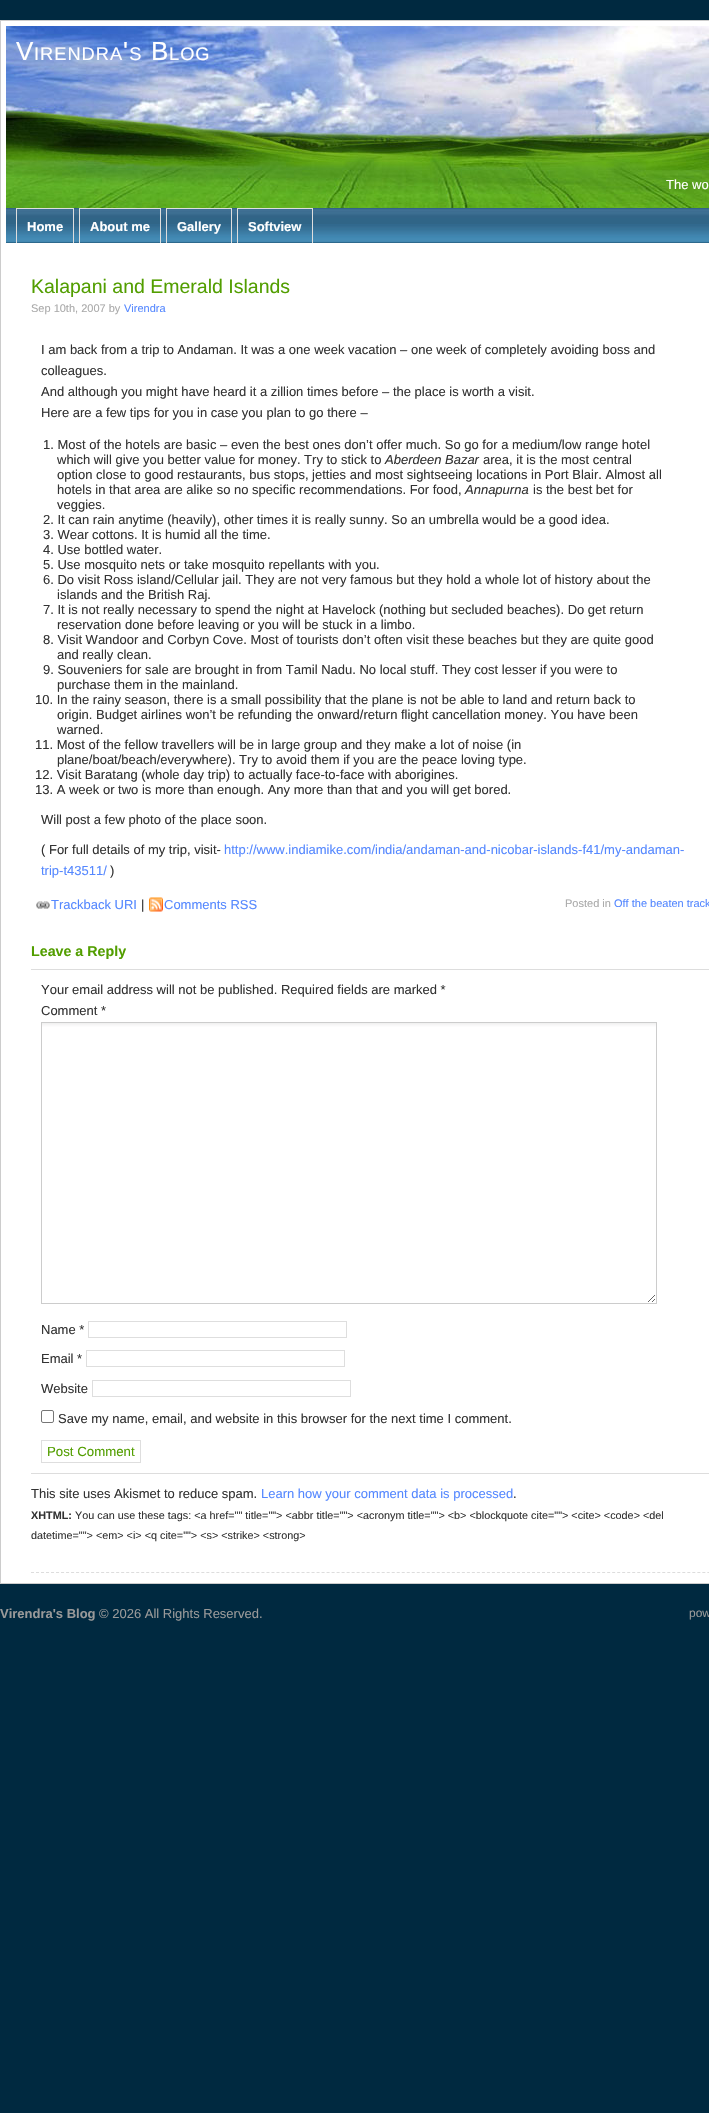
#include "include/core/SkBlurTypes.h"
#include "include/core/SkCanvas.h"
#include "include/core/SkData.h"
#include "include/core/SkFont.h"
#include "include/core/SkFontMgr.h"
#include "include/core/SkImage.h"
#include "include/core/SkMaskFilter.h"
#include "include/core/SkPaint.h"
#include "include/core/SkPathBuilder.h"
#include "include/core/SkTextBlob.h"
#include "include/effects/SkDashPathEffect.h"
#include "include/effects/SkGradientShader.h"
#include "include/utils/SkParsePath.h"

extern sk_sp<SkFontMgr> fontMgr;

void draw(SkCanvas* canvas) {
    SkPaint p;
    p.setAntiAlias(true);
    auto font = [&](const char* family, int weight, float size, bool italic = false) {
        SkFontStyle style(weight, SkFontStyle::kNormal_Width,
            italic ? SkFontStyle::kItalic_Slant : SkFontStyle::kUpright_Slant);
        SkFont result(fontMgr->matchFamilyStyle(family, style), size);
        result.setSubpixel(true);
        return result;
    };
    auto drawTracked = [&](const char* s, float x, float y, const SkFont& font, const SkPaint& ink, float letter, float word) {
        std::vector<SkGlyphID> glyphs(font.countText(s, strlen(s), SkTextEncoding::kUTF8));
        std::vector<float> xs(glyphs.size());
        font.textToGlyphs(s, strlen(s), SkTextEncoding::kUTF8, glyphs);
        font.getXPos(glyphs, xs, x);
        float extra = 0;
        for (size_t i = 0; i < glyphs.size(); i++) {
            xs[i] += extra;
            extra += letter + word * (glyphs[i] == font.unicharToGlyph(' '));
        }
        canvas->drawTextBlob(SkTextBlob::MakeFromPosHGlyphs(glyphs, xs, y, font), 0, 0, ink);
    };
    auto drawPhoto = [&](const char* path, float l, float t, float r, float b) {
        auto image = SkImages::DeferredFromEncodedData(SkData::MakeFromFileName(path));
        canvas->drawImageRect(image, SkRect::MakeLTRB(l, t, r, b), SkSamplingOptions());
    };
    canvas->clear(0xFF002940);
    p.setColor(0xFFFFFFFF);
    canvas->drawRect(SkRect::MakeLTRB(0.5f, 20.5f, 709.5f, 1583.5f), p);
    p.setStyle(SkPaint::kStroke_Style);
    p.setStrokeWidth(1);
    p.setColor(0xFFCCCCCC);
    canvas->drawRect(SkRect::MakeLTRB(0.5f, 20.5f, 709.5f, 1583.5f), p);
    drawPhoto("media/1.png", 6, 26, 709, 208);
    auto font1 = font("Liberation Sans", 400, 26);
    p.setStyle(SkPaint::kFill_Style);
    p.setColor(0xFFFFFFFF);
    {
        const struct { const char* s; float x, y; } items[] = {
            {"V", 16, 60},
            {"'", 123, 60},
            {"B", 151, 60},
        };
        for (auto [s, x, y] : items) {
            drawTracked(s, x, y, font1, p, 1, 0);
        }
    }
    auto font2 = font("Liberation Sans", 400, 18.25f);
    drawTracked("IRENDRA S", 34, 60, font2, p, 1, 0);
    drawTracked("LOG", 169, 60, font2, p, 1, 0);
    auto font3 = font("Liberation Sans", 400, 13);
    canvas->drawString("The wo", 666, 189, font3, p);
    drawPhoto("media/2.png", 6, 208, 709, 243);
    {
        const struct { float l, t, r, b; SkColor color; } items[] = {
            {16, 208, 74, 209, 0xFFDEDEDE},
            {73, 208, 74, 243, 0xFFDEDEDE},
            {16, 208, 17, 243, 0xFFDEDEDE},
        };
        for (auto [l, t, r, b, color] : items) {
            p.setColor(color);
            canvas->drawRect(SkRect::MakeLTRB(l, t, r, b), p);
        }
    }
    auto font4 = font("Liberation Sans", 700, 13);
    p.setColor(0xFFFFFFFF);
    canvas->drawString("Home", 27, 231, font4, p);
    {
        const struct { float l, t, r, b; SkColor color; } items[] = {
            {79, 208, 161, 209, 0xFFDEDEDE},
            {160, 208, 161, 243, 0xFFDEDEDE},
            {79, 208, 80, 243, 0xFFDEDEDE},
        };
        for (auto [l, t, r, b, color] : items) {
            p.setColor(color);
            canvas->drawRect(SkRect::MakeLTRB(l, t, r, b), p);
        }
    }
    p.setColor(0xFFFFFFFF);
    canvas->drawString("About me", 90, 231, font4, p);
    {
        const struct { float l, t, r, b; SkColor color; } items[] = {
            {166, 208, 232, 209, 0xFFDEDEDE},
            {231, 208, 232, 243, 0xFFDEDEDE},
            {166, 208, 167, 243, 0xFFDEDEDE},
        };
        for (auto [l, t, r, b, color] : items) {
            p.setColor(color);
            canvas->drawRect(SkRect::MakeLTRB(l, t, r, b), p);
        }
    }
    p.setColor(0xFFFFFFFF);
    canvas->drawString("Gallery", 177, 231, font4, p);
    {
        const struct { float l, t, r, b; SkColor color; } items[] = {
            {237, 208, 313, 209, 0xFFDEDEDE},
            {312, 208, 313, 243, 0xFFDEDEDE},
            {237, 208, 238, 243, 0xFFDEDEDE},
        };
        for (auto [l, t, r, b, color] : items) {
            p.setColor(color);
            canvas->drawRect(SkRect::MakeLTRB(l, t, r, b), p);
        }
    }
    p.setColor(0xFFFFFFFF);
    canvas->drawString("Softview", 248, 231, font4, p);
    p.setStyle(SkPaint::kStroke_Style);
    p.setColor(0xFFDDDDDD);
    p.setPathEffect(SkDashPathEffect::Make({{3, 2.01f}}, 0));
    canvas->drawPath(SkPathBuilder().moveTo(31, 1572.5f).lineTo(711, 1572.5f).detach(), p);
    p.setPathEffect(nullptr);
    auto font5 = font("Liberation Sans", 400, 19.5f);
    p.setStyle(SkPaint::kFill_Style);
    p.setColor(0xFF529E00);
    canvas->drawString("Kalapani and Emerald Islands", 31, 293, font5, p);
    auto font6 = font("Liberation Sans", 400, 11);
    p.setColor(0xFFAAAAAA);
    canvas->drawString("Sep 10th, 2007 by", 31, 312, font6, p);
    p.setColor(0xFF5588FF);
    canvas->drawString("Virendra", 124, 312, font6, p);
    p.setColor(0xFF333333);
    {
        const struct { const char* s; float x, y; } items[] = {
            {"I am back from a trip to Andaman. It was a one week vacation – one week of completely avoiding boss and", 41, 354},
            {"colleagues.", 41, 375},
            {"And although you might have heard it a zillion times before – the place is worth a visit.", 41, 396},
            {"Here are a few tips for you in case you plan to go there –", 41, 417},
            {"1. Most of the hotels are basic – even the best ones don’t offer much. So go for a medium/low range hotel", 43, 449},
            {"which will give you better value for money. Try to stick to", 57, 464},
        };
        for (auto [s, x, y] : items) {
            canvas->drawString(s, x, y, font3, p);
        }
    }
    auto font7 = font("Liberation Sans", 400, 13, true);
    canvas->drawString("Aberdeen Bazar", 385, 464, font7, p);
    {
        const struct { const char* s; float x, y; } items[] = {
            {"area, it is the most central", 483, 464},
            {"option close to good restaurants, bus stops, jetties and most sightseeing locations in Port Blair. Almost all", 57, 479},
            {"hotels in that area are alike so no specific recommendations. For food,", 57, 494},
        };
        for (auto [s, x, y] : items) {
            canvas->drawString(s, x, y, font3, p);
        }
    }
    canvas->drawString("Annapurna", 465, 494, font7, p);
    {
        const struct { const char* s; float x, y; } items[] = {
            {"is the best bet for", 533, 494},
            {"veggies.", 57, 509},
            {"2. It can rain anytime (heavily), other times it is really sunny. So an umbrella would be a good idea.", 43, 524},
            {"3. Wear cottons. It is humid all the time.", 43, 539},
            {"4. Use bottled water.", 43, 554},
            {"5. Use mosquito nets or take mosquito repellants with you.", 43, 569},
            {"6. Do visit Ross island/Cellular jail. They are not very famous but they hold a whole lot of history about the", 43, 584},
            {"islands and the British Raj.", 57, 599},
            {"7. It is not really necessary to spend the night at Havelock (nothing but secluded beaches). Do get return", 43, 614},
            {"reservation done before leaving or you will be stuck in a limbo.", 57, 629},
            {"8. Visit Wandoor and Corbyn Cove. Most of tourists don’t often visit these beaches but they are quite good", 43, 644},
            {"and really clean.", 57, 659},
            {"9. Souveniers for sale are brought in from Tamil Nadu. No local stuff. They cost lesser if you were to", 43, 674},
            {"purchase them in the mainland.", 57, 689},
            {"10. In the rainy season, there is a small possibility that the plane is not be able to land and return back to", 35, 704},
            {"origin. Budget airlines won’t be refunding the onward/return flight cancellation money. You have been", 57, 719},
            {"warned.", 57, 734},
            {"11. Most of the fellow travellers will be in large group and they make a lot of noise (in", 35, 749},
            {"plane/boat/beach/everywhere). Try to avoid them if you are the peace loving type.", 57, 764},
            {"12. Visit Baratang (whole day trip) to actually face-to-face with aborigines.", 35, 779},
            {"13. A week or two is more than enough. Any more than that and you will get bored.", 35, 794},
            {"Will post a few photo of the place soon.", 41, 824},
            {"( For full details of my trip, visit-", 41, 854},
        };
        for (auto [s, x, y] : items) {
            canvas->drawString(s, x, y, font3, p);
        }
    }
    p.setColor(0xFF5588FF);
    canvas->drawString("http://www.indiamike.com/india/andaman-and-nicobar-islands-f41/my-andaman-", 224, 854, font3, p);
    canvas->drawString("trip-t43511/", 41, 875, font3, p);
    p.setColor(0xFF333333);
    canvas->drawString(")", 110, 875, font3, p);
    drawPhoto("media/3.png", 36, 901, 50, 909);
    p.setColor(0xFF5588FF);
    canvas->drawString("Trackback URI", 51, 909, font3, p);
    p.setColor(0xFF333333);
    canvas->drawString("|", 141, 909, font3, p);
    drawPhoto("media/4.png", 149, 897, 163, 912);
    p.setColor(0xFF5588FF);
    canvas->drawString("Comments RSS", 164, 909, font3, p);
    p.setColor(0xFFAAAAAA);
    canvas->drawString("Posted in", 565, 907, font6, p);
    p.setColor(0xFF5588FF);
    canvas->drawString("Off the beaten track", 614, 907, font6, p);
    auto font8 = font("Liberation Sans", 700, 14.25f);
    p.setColor(0xFF529E00);
    canvas->drawString("Leave a Reply", 31, 956, font8, p);
    p.setColor(0xFFDDDDDD);
    canvas->drawRect(SkRect::MakeLTRB(31, 969, 709, 970), p);
    canvas->drawRect(SkRect::MakeLTRB(31, 1473, 709, 1474), p);
    p.setColor(0xFF333333);
    canvas->drawString("Your email address will not be published. Required fields are marked *", 41, 994, font3, p);
    canvas->drawString("Comment *", 41, 1015, font3, p);
    drawPhoto("media/5.png", 42, 1023, 656, 1302);
    p.setStyle(SkPaint::kStroke_Style);
    p.setColor(0xFFCCCCCC);
    canvas->drawRect(SkRect::MakeLTRB(41.5f, 1022.5f, 656.5f, 1303.5f), p);
    p.setStyle(SkPaint::kFill_Style);
    p.setColor(0xFF333333);
    canvas->drawString("Name *", 41, 1334, font3, p);
    p.setStyle(SkPaint::kStroke_Style);
    p.setColor(0xFFDEDEDE);
    canvas->drawRect(SkRect::MakeLTRB(88.5f, 1321.5f, 346.5f, 1337.5f), p);
    p.setStyle(SkPaint::kFill_Style);
    p.setColor(0xFF333333);
    canvas->drawString("Email *", 41, 1363, font3, p);
    p.setStyle(SkPaint::kStroke_Style);
    p.setColor(0xFFDEDEDE);
    canvas->drawRect(SkRect::MakeLTRB(86.5f, 1350.5f, 344.5f, 1366.5f), p);
    p.setStyle(SkPaint::kFill_Style);
    p.setColor(0xFF333333);
    canvas->drawString("Website", 41, 1393, font3, p);
    p.setStyle(SkPaint::kStroke_Style);
    p.setColor(0xFFDEDEDE);
    canvas->drawRect(SkRect::MakeLTRB(92.5f, 1380.5f, 350.5f, 1396.5f), p);
    p.setColor(0xFF767676);
    canvas->drawRoundRect(SkRect::MakeLTRB(41.5f, 1410.5f, 53.5f, 1422.5f), 1.5f, 1.5f, p);
    p.setStyle(SkPaint::kFill_Style);
    p.setColor(0xFF333333);
    canvas->drawString("Save my name, email, and website in this browser for the next time I comment.", 58, 1423, font3, p);
    p.setStyle(SkPaint::kStroke_Style);
    p.setColor(0xFFDEDEDE);
    canvas->drawRect(SkRect::MakeLTRB(41.5f, 1440.5f, 140.5f, 1462.5f), p);
    auto font9 = font("Liberation Sans", 400, 13.25f);
    p.setStyle(SkPaint::kFill_Style);
    p.setColor(0xFF529E00);
    canvas->drawString("Post Comment", 47, 1456, font9, p);
    p.setColor(0xFF333333);
    canvas->drawString("This site uses Akismet to reduce spam.", 31, 1498, font3, p);
    p.setColor(0xFF5588FF);
    canvas->drawString("Learn how your comment data is processed", 261, 1498, font3, p);
    p.setColor(0xFF333333);
    canvas->drawString(".", 513, 1498, font3, p);
    auto font10 = font("Liberation Sans", 700, 10.83f);
    canvas->drawString("XHTML:", 31, 1519, font10, p);
    auto font11 = font("Liberation Sans", 400, 10.83f);
    canvas->drawString("You can use these tags: <a href=\"\" title=\"\"> <abbr title=\"\"> <acronym title=\"\"> <b> <blockquote cite=\"\"> <cite> <code> <del", 75, 1519, font11, p);
    canvas->drawString("datetime=\"\"> <em> <i> <q cite=\"\"> <s> <strike> <strong>", 31, 1539, font11, p);
    p.setColor(0xFF999999);
    canvas->drawString("Virendra's Blog", 0, 1618, font4, p);
    canvas->drawString("© 2026 All Rights Reserved.", 99, 1618, font3, p);
    auto font12 = font("Liberation Sans", 400, 12);
    canvas->drawString("pow", 689, 1617, font12, p);
}
